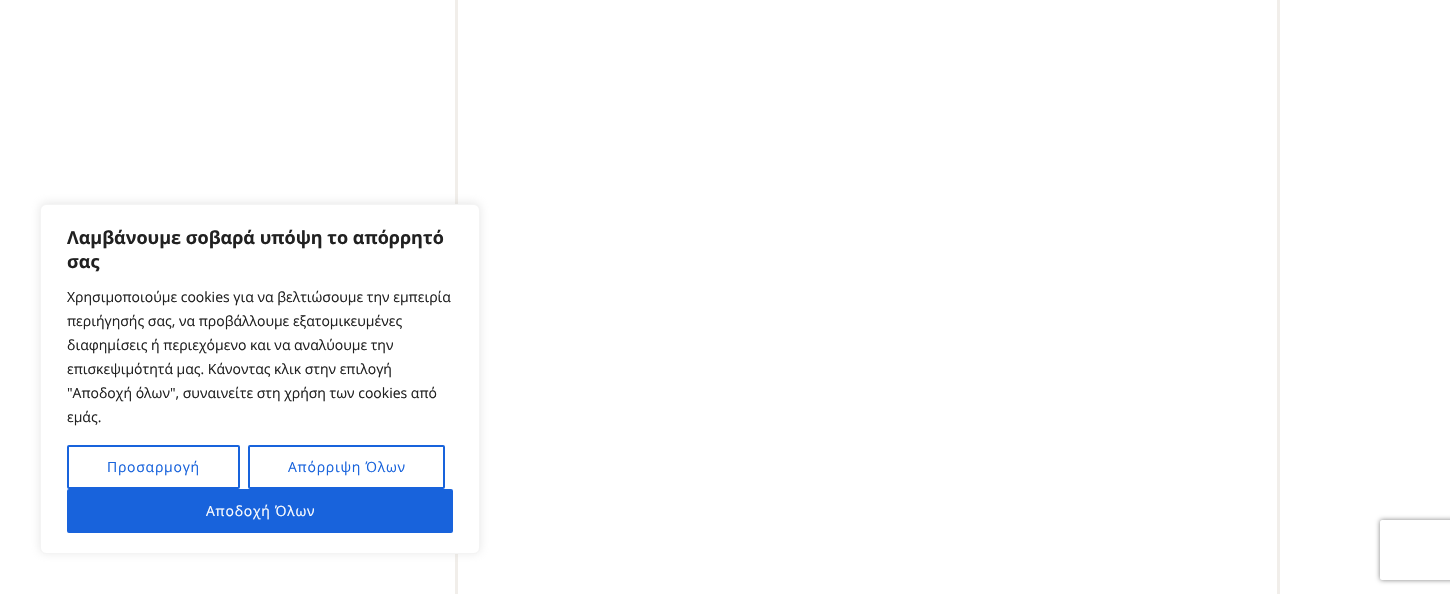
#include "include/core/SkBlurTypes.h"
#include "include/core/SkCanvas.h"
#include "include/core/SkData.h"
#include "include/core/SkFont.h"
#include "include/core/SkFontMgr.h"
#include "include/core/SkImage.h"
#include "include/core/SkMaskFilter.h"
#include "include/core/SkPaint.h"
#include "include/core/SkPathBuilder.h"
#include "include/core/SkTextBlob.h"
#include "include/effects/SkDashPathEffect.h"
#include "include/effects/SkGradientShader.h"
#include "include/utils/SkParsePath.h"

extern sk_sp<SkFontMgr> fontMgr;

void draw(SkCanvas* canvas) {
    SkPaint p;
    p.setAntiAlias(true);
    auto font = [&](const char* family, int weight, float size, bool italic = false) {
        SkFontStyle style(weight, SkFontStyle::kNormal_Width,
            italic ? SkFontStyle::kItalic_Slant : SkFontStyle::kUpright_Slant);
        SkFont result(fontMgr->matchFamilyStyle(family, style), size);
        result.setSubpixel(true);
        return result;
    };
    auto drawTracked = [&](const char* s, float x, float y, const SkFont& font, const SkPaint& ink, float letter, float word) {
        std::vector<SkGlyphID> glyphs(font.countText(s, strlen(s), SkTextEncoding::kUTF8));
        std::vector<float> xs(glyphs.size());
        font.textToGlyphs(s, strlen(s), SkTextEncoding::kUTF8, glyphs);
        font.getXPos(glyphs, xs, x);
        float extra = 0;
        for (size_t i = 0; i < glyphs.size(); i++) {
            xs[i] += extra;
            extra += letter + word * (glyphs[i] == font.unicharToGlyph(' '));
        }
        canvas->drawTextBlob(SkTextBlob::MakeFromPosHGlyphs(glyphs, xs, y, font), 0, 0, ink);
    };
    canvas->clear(0xFFFFFFFF);
    p.setStyle(SkPaint::kStroke_Style);
    p.setStrokeWidth(3);
    p.setColor(0xFFF1EEEA);
    canvas->drawRect(SkRect::MakeLTRB(456.5f, -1.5f, 1278.5f, 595.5f), p);
    p.setStyle(SkPaint::kFill_Style);
    p.setColor(0x4DACABAB);
    p.setMaskFilter(SkMaskFilter::MakeBlur(kNormal_SkBlurStyle, 5));
    canvas->drawRoundRect(SkRect::MakeLTRB(40, 203, 480, 553), 6, 6, p);
    p.setMaskFilter(nullptr);
    p.setColor(0xFFFFFFFF);
    canvas->drawRoundRect(SkRect::MakeLTRB(40.5f, 204.5f, 479.5f, 553.5f), 5.5f, 5.5f, p);
    p.setStyle(SkPaint::kStroke_Style);
    p.setStrokeWidth(1);
    p.setColor(0xFFF4F4F4);
    canvas->drawRoundRect(SkRect::MakeLTRB(40.5f, 204.5f, 479.5f, 553.5f), 5.5f, 5.5f, p);
    auto font1 = font("Open Sans", 700, 18);
    p.setStyle(SkPaint::kFill_Style);
    p.setColor(0xFF212121);
    canvas->drawString("Λαμβάνουμε σοβαρά υπόψη το απόρρητό", 67, 244, font1, p);
    canvas->drawString("σας", 67, 268, font1, p);
    auto font2 = font("Open Sans", 400, 14);
    {
        const struct { const char* s; float x, y; } items[] = {
            {"Χρησιμοποιούμε cookies για να βελτιώσουμε την εμπειρία", 67, 302},
            {"περιήγησής σας, να προβάλλουμε εξατομικευμένες", 67, 326},
            {"διαφημίσεις ή περιεχόμενο και να αναλύουμε την", 67, 350},
            {"επισκεψιμότητά μας. Κάνοντας κλικ στην επιλογή", 67, 374},
            {"\"Αποδοχή όλων\", συναινείτε στη χρήση των cookies από", 67, 398},
            {"εμάς.", 67, 422},
        };
        for (auto [s, x, y] : items) {
            canvas->drawString(s, x, y, font2, p);
        }
    }
    p.setStyle(SkPaint::kStroke_Style);
    p.setStrokeWidth(2);
    p.setColor(0xFF1863DC);
    canvas->drawRoundRect(SkRect::MakeLTRB(68, 446, 239, 488), 1, 1, p);
    p.setStyle(SkPaint::kFill_Style);
    drawTracked("Προσαρμογή", 107, 472, font2, p, 0.75f, 0);
    p.setStyle(SkPaint::kStroke_Style);
    canvas->drawRoundRect(SkRect::MakeLTRB(249, 446, 444, 488), 1, 1, p);
    p.setStyle(SkPaint::kFill_Style);
    drawTracked("Απόρριψη Όλων", 288, 472, font2, p, 0.75f, 0);
    canvas->drawRoundRect(SkRect::MakeLTRB(68, 490, 452, 532), 1, 1, p);
    p.setStyle(SkPaint::kStroke_Style);
    canvas->drawRoundRect(SkRect::MakeLTRB(68, 490, 452, 532), 1, 1, p);
    p.setStyle(SkPaint::kFill_Style);
    p.setColor(0xFFFFFFFF);
    drawTracked("Αποδοχή Όλων", 206, 516, font2, p, 0.75f, 0);
    canvas->save();
    canvas->clipPath(SkPathBuilder(SkPathFillType::kEvenOdd).moveTo(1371, 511).lineTo(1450, 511).lineTo(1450, 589).lineTo(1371, 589).close().moveTo(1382, 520).lineTo(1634, 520).cubicTo(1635, 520, 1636, 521, 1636, 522).lineTo(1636, 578).cubicTo(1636, 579, 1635, 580, 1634, 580).lineTo(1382, 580).cubicTo(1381, 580, 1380, 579, 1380, 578).lineTo(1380, 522).cubicTo(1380, 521, 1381, 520, 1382, 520).close().detach(), true);
    p.setColor(0xFF808080);
    p.setMaskFilter(SkMaskFilter::MakeBlur(kNormal_SkBlurStyle, 2.5f));
    canvas->drawRoundRect(SkRect::MakeLTRB(1380, 520, 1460, 580), 2, 2, p);
    p.setMaskFilter(nullptr);
    canvas->restore();
}
